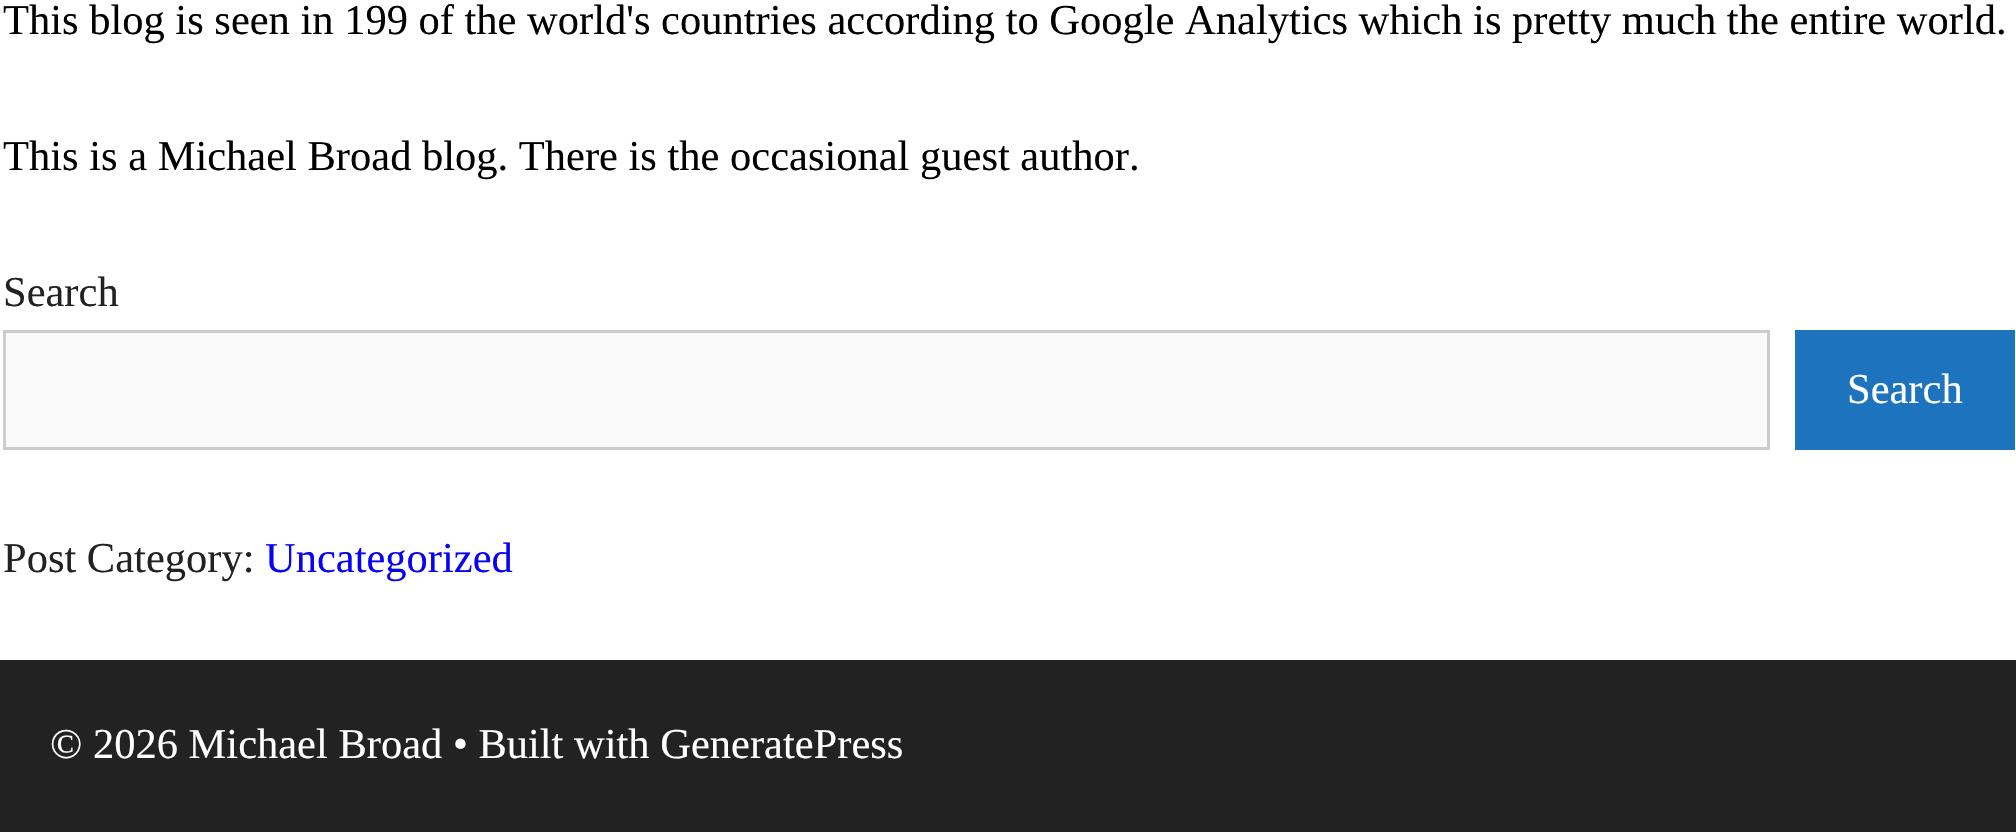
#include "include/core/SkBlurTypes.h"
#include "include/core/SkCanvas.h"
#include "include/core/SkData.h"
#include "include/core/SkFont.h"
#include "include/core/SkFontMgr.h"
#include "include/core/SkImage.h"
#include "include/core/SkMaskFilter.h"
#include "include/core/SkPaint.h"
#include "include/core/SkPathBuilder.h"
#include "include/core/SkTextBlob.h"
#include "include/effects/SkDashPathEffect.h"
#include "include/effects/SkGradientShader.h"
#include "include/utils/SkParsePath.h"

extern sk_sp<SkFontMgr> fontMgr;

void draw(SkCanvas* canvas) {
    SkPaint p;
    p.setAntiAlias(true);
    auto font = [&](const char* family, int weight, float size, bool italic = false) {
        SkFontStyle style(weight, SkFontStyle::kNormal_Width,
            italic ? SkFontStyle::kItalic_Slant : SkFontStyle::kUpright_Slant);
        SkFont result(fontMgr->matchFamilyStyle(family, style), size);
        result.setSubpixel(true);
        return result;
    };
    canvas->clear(0xFFFFFFFF);
    auto font1 = font("Liberation Serif", 400, 42.5f);
    p.setColor(0xFF000000);
    canvas->drawString("This blog is seen in 199 of the world's countries according to Google Analytics which is pretty much the entire world.", 3, 34, font1, p);
    canvas->drawString("This is a Michael Broad blog. There is the occasional guest author.", 3, 170, font1, p);
    p.setColor(0xFF222222);
    canvas->drawString("Search", 3, 306, font1, p);
    p.setColor(0xFFFAFAFA);
    canvas->drawRect(SkRect::MakeLTRB(4.5f, 331.5f, 1768.5f, 448.5f), p);
    p.setStyle(SkPaint::kStroke_Style);
    p.setStrokeWidth(3);
    p.setColor(0xFFCCCCCC);
    canvas->drawRect(SkRect::MakeLTRB(4.5f, 331.5f, 1768.5f, 448.5f), p);
    p.setStyle(SkPaint::kFill_Style);
    p.setColor(0xFF1E73BE);
    canvas->drawRect(SkRect::MakeLTRB(1795, 330, 2015, 450), p);
    p.setColor(0xFFFFFFFF);
    canvas->drawString("Search", 1847, 403, font1, p);
    p.setColor(0xFF222222);
    canvas->drawString("Post Category:", 3, 572, font1, p);
    p.setColor(0xFF0702F7);
    canvas->drawString("Uncategorized", 265, 572, font1, p);
    p.setColor(0xFF222222);
    canvas->drawRect(SkRect::MakeLTRB(0, 660, 2016, 832), p);
    p.setColor(0xFFFFFFFF);
    canvas->drawString("© 2026 Michael Broad • Built with GeneratePress", 50, 758, font1, p);
}
